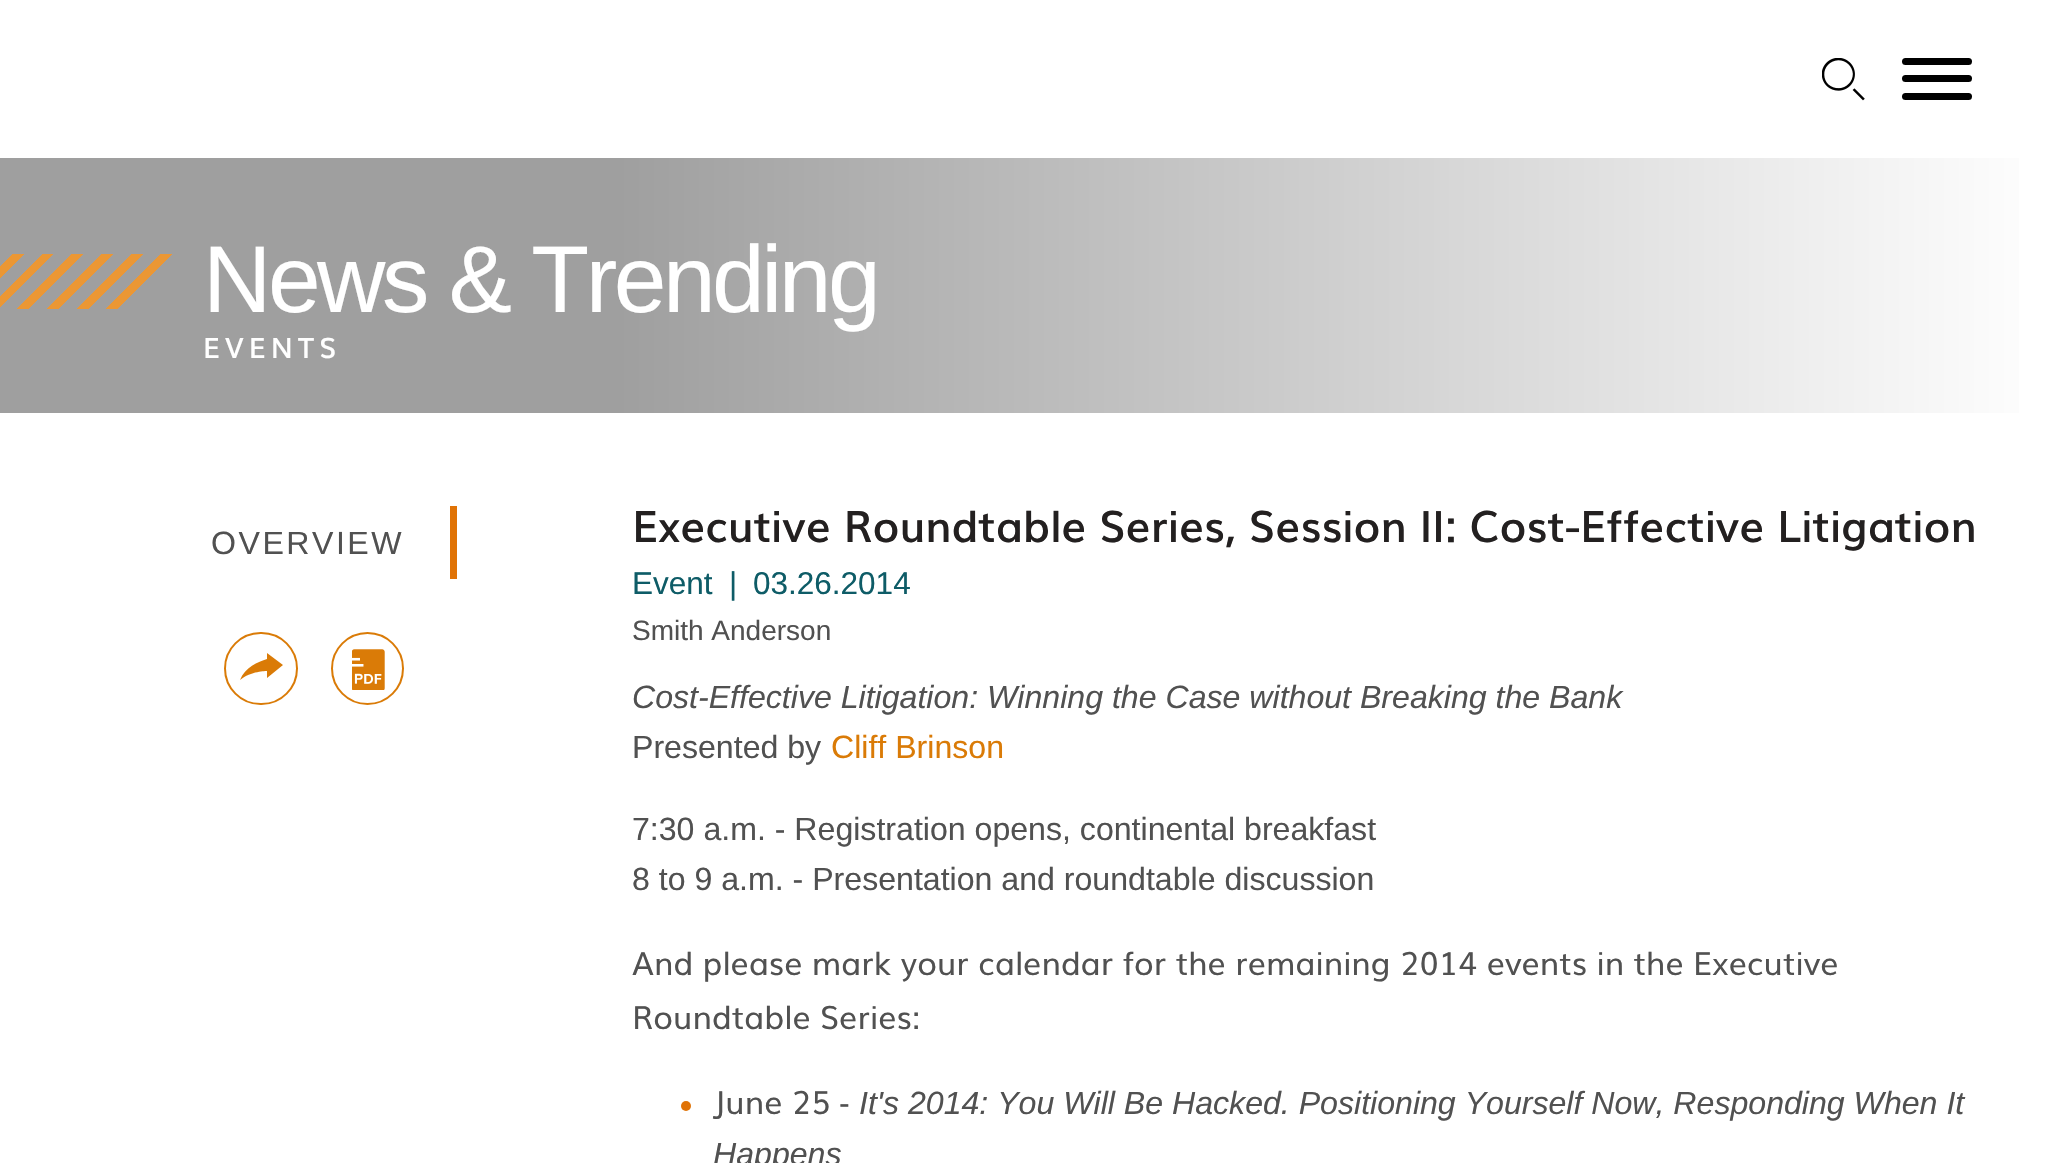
#include "include/core/SkBlurTypes.h"
#include "include/core/SkCanvas.h"
#include "include/core/SkData.h"
#include "include/core/SkFont.h"
#include "include/core/SkFontMgr.h"
#include "include/core/SkImage.h"
#include "include/core/SkMaskFilter.h"
#include "include/core/SkPaint.h"
#include "include/core/SkPathBuilder.h"
#include "include/core/SkTextBlob.h"
#include "include/effects/SkDashPathEffect.h"
#include "include/effects/SkGradientShader.h"
#include "include/utils/SkParsePath.h"

extern sk_sp<SkFontMgr> fontMgr;

void draw(SkCanvas* canvas) {
    SkPaint p;
    p.setAntiAlias(true);
    auto font = [&](const char* family, int weight, float size, bool italic = false) {
        SkFontStyle style(weight, SkFontStyle::kNormal_Width,
            italic ? SkFontStyle::kItalic_Slant : SkFontStyle::kUpright_Slant);
        SkFont result(fontMgr->matchFamilyStyle(family, style), size);
        result.setSubpixel(true);
        return result;
    };
    auto drawTracked = [&](const char* s, float x, float y, const SkFont& font, const SkPaint& ink, float letter, float word) {
        std::vector<SkGlyphID> glyphs(font.countText(s, strlen(s), SkTextEncoding::kUTF8));
        std::vector<float> xs(glyphs.size());
        font.textToGlyphs(s, strlen(s), SkTextEncoding::kUTF8, glyphs);
        font.getXPos(glyphs, xs, x);
        float extra = 0;
        for (size_t i = 0; i < glyphs.size(); i++) {
            xs[i] += extra;
            extra += letter + word * (glyphs[i] == font.unicharToGlyph(' '));
        }
        canvas->drawTextBlob(SkTextBlob::MakeFromPosHGlyphs(glyphs, xs, y, font), 0, 0, ink);
    };
    auto drawPhoto = [&](const char* path, float l, float t, float r, float b) {
        auto image = SkImages::DeferredFromEncodedData(SkData::MakeFromFileName(path));
        canvas->drawImageRect(image, SkRect::MakeLTRB(l, t, r, b), SkSamplingOptions());
    };
    canvas->clear(0xFFFFFFFF);
    drawPhoto("media/1.png", 1822, 58, 1865, 101);
    p.setColor(0xFF000000);
    canvas->drawRoundRect(SkRect::MakeLTRB(1902, 58, 1972, 65), 3.5f, 3.5f, p);
    canvas->drawRoundRect(SkRect::MakeLTRB(1902, 75, 1972, 82), 3.5f, 3.5f, p);
    canvas->drawRoundRect(SkRect::MakeLTRB(1902, 93, 1972, 100), 3.5f, 3.5f, p);
    {
        const SkColor colors[] = {0xFF9F9F9F, 0xFFFFFFFF};
        const float stops[] = {0.3f, 1};
        const SkPoint ends[] = {{0, 285}, {2056, 285}};
        p.setShader(SkGradientShader::MakeLinear(ends, colors, stops, 2, SkTileMode::kClamp));
        p.setAlpha(255);
    }
    canvas->drawRect(SkRect::MakeLTRB(0, 158, 2019, 413), p);
    {
        const SkColor colors[] = {0xFF9F9F9F, 0xFF9F9F9F, 0xFFEB9734, 0xFFEB9734, 0xFF9F9F9F, 0xFF9F9F9F, 0xFFEB9734, 0xFFEB9734, 0xFF9F9F9F, 0xFF9F9F9F, 0xFFEB9734, 0xFFEB9734, 0xFF9F9F9F, 0xFF9F9F9F, 0xFFEB9734, 0xFFEB9734, 0xFF9F9F9F, 0xFF9F9F9F, 0xFFEB9734, 0xFFEB9734, 0xFF9F9F9F, 0xFF9F9F9F, 0xFFEB9734, 0xFFEB9734, 0xFF9F9F9F, 0xFF9F9F9F, 0xFFEB9734, 0xFFEB9734, 0xFF9F9F9F, 0xFF9F9F9F, 0xFFEB9734, 0xFFEB9734, 0xFF9F9F9F, 0xFF9F9F9F, 0xFFEB9734, 0xFFEB9734, 0xFF9F9F9F, 0xFF9F9F9F, 0xFFEB9734, 0xFFEB9734, 0xFF9F9F9F, 0xFF9F9F9F, 0xFFEB9734, 0xFFEB9734, 0xFF9F9F9F, 0xFF9F9F9F, 0xFFEB9734, 0xFFEB9734, 0xFF9F9F9F, 0xFF9F9F9F, 0xFFEB9734, 0xFFEB9734, 0xFF9F9F9F, 0xFF9F9F9F, 0xFFEB9734, 0xFFEB9734, 0xFF9F9F9F, 0xFF9F9F9F, 0xFFEB9734, 0xFFEB9734, 0xFF9F9F9F, 0xFF9F9F9F, 0xFFEB9734, 0xFFEB9734, 0xFF9F9F9F, 0xFF9F9F9F, 0xFFEB9734, 0xFFEB9734, 0xFF9F9F9F, 0xFF9F9F9F, 0xFFEB9734, 0xFFEB9734, 0xFF9F9F9F, 0xFF9F9F9F, 0xFFEB9734, 0xFFEB9734, 0xFF9F9F9F, 0xFF9F9F9F, 0xFFEB9734, 0xFFEB9734};
        const float stops[] = {0, 0.03f, 0.03f, 0.05f, 0.05f, 0.08f, 0.08f, 0.1f, 0.1f, 0.13f, 0.13f, 0.15f, 0.15f, 0.18f, 0.18f, 0.2f, 0.2f, 0.23f, 0.23f, 0.25f, 0.25f, 0.28f, 0.28f, 0.3f, 0.3f, 0.33f, 0.33f, 0.35f, 0.35f, 0.38f, 0.38f, 0.4f, 0.4f, 0.43f, 0.43f, 0.45f, 0.45f, 0.48f, 0.48f, 0.5f, 0.5f, 0.53f, 0.53f, 0.55f, 0.55f, 0.58f, 0.58f, 0.6f, 0.6f, 0.63f, 0.63f, 0.65f, 0.65f, 0.68f, 0.68f, 0.7f, 0.7f, 0.73f, 0.73f, 0.75f, 0.75f, 0.78f, 0.78f, 0.8f, 0.8f, 0.83f, 0.83f, 0.85f, 0.85f, 0.88f, 0.88f, 0.9f, 0.9f, 0.93f, 0.93f, 0.95f, 0.95f, 0.98f, 0.98f, 1};
        const SkPoint ends[] = {{77, 427}, {-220, 130}};
        p.setShader(SkGradientShader::MakeLinear(ends, colors, stops, 80, SkTileMode::kClamp));
        p.setAlpha(255);
    }
    canvas->drawPath(SkPathBuilder().moveTo(184, 254).lineTo(133, 309).lineTo(-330, 309).lineTo(-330, 254).close().detach(), p);
    auto font1 = font("Liberation Sans", 400, 94.75f);
    p.setShader(nullptr);
    p.setColor(0xFFFFFFFF);
    drawTracked("News & Trending", 203, 312, font1, p, -3.5f, 0);
    auto font2 = font("Muli", 600, 28);
    drawTracked("EVENTS", 203, 358, font2, p, 5.25f, 0);
    auto font3 = font("Liberation Sans", 400, 32.1f);
    p.setColor(0xFF515151);
    drawTracked("OVERVIEW", 211, 554, font3, p, 2.5f, 0);
    p.setColor(0xFFE07306);
    canvas->drawRect(SkRect::MakeLTRB(450, 506, 457, 579), p);
    p.setStyle(SkPaint::kStroke_Style);
    p.setStrokeWidth(2);
    p.setColor(0xFFDA7B07);
    canvas->drawRoundRect(SkRect::MakeLTRB(225, 633, 297, 704), 35.5f, 35.5f, p);
    p.setStyle(SkPaint::kFill_Style);
    canvas->drawPath(SkPathBuilder().moveTo(267, 653).lineTo(283, 665).lineTo(267, 678).lineTo(267, 671).cubicTo(266, 671, 251, 671, 240, 680).cubicTo(245, 667, 258, 662, 267, 659).close().detach(), p);
    p.setStyle(SkPaint::kStroke_Style);
    canvas->drawCircle(367.5f, 668.5f, 35.5f, p);
    drawPhoto("media/2.png", 352, 649, 385, 690);
    auto font4 = font("Muli", 600, 43.45f);
    p.setStyle(SkPaint::kFill_Style);
    p.setColor(0xFF232020);
    canvas->drawString("Executive Roundtable Series, Session II: Cost-Effective Litigation", 632, 542, font4, p);
    auto font5 = font("Liberation Sans", 400, 31.5f);
    p.setColor(0xFF0E5C67);
    {
        const struct { const char* s; float x, y; } items[] = {
            {"Event", 632, 594},
            {"|", 729, 594},
            {"03.26.2014", 753, 594},
        };
        for (auto [s, x, y] : items) {
            canvas->drawString(s, x, y, font5, p);
        }
    }
    auto font6 = font("Liberation Sans", 400, 28);
    p.setColor(0xFF515151);
    canvas->drawString("Smith Anderson", 632, 640, font6, p);
    auto font7 = font("Liberation Sans", 400, 32.1f, true);
    canvas->drawString("Cost-Effective Litigation: Winning the Case without Breaking the Bank", 632, 708, font7, p);
    canvas->drawString("Presented by", 632, 758, font3, p);
    p.setColor(0xFFDA7B07);
    canvas->drawString("Cliff Brinson", 831, 758, font3, p);
    p.setColor(0xFF515151);
    canvas->drawString("7:30 a.m. - Registration opens, continental breakfast", 632, 840, font3, p);
    canvas->drawString("8 to 9 a.m. - Presentation and roundtable discussion", 632, 890, font3, p);
    auto font8 = font("Muli", 400, 32.1f);
    canvas->drawString("And please mark your calendar for the remaining 2014 events in the Executive", 632, 975, font8, p);
    canvas->drawString("Roundtable Series:", 632, 1029, font8, p);
    p.setColor(0xFFE07306);
    canvas->drawCircle(686, 1106, 5, p);
    p.setColor(0xFF515151);
    canvas->drawString("June 25", 713, 1114, font8, p);
    canvas->drawString("-", 839, 1114, font3, p);
    canvas->drawString("It's 2014: You Will Be Hacked. Positioning Yourself Now, Responding When It", 859, 1114, font7, p);
    canvas->drawString("Happens", 713, 1165, font7, p);
}
